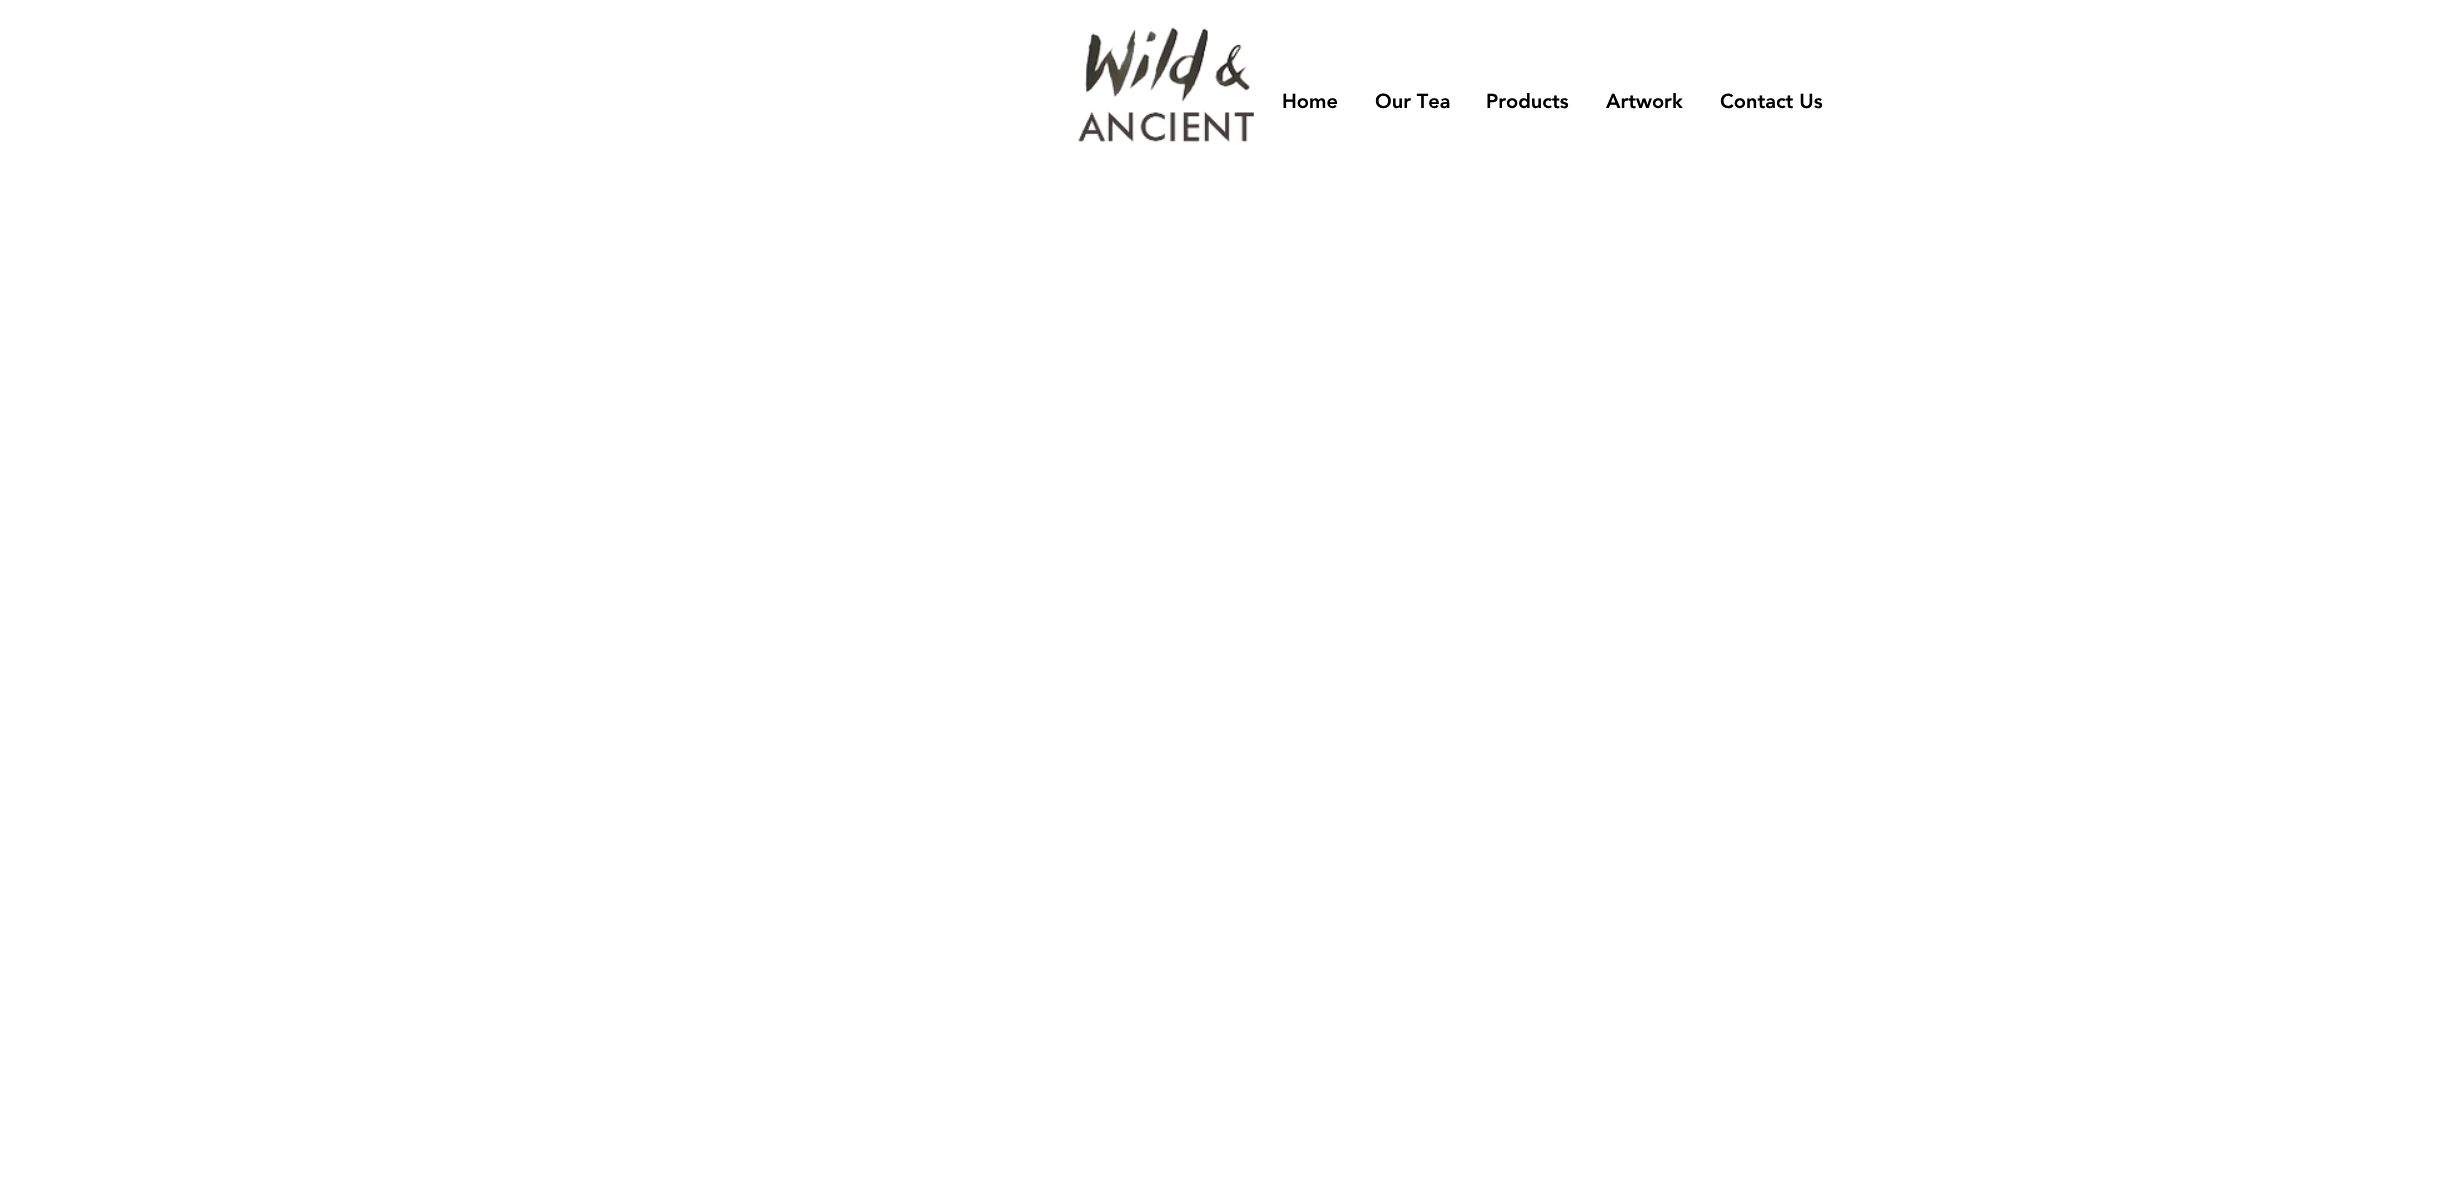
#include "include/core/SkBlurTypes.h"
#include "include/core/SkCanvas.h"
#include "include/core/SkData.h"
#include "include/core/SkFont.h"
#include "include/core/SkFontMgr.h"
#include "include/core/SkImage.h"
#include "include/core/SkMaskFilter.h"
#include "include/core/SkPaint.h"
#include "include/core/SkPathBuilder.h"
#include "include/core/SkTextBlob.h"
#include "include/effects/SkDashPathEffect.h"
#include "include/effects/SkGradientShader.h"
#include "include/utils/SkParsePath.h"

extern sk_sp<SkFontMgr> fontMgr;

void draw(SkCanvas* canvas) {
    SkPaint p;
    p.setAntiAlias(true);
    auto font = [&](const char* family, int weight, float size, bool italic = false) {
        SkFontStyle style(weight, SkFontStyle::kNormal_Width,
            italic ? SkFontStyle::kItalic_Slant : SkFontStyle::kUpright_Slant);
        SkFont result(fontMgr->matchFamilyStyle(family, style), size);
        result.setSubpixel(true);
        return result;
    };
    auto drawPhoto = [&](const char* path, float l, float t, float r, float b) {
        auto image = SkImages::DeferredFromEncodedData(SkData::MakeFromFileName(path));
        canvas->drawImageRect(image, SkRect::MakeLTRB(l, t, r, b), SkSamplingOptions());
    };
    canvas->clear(0xFFFFFFFF);
    drawPhoto("media/1.png", 1078, 27, 1254, 143);
    auto font1 = font("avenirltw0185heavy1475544", 900, 20);
    p.setColor(0xFF000000);
    {
        const struct { const char* s; float x, y; } items[] = {
            {"Home", 1282, 108},
            {"Our Tea", 1375, 108},
            {"Products", 1486, 108},
            {"Artwork", 1606, 108},
            {"Contact Us", 1720, 108},
        };
        for (auto [s, x, y] : items) {
            canvas->drawString(s, x, y, font1, p);
        }
    }
}
